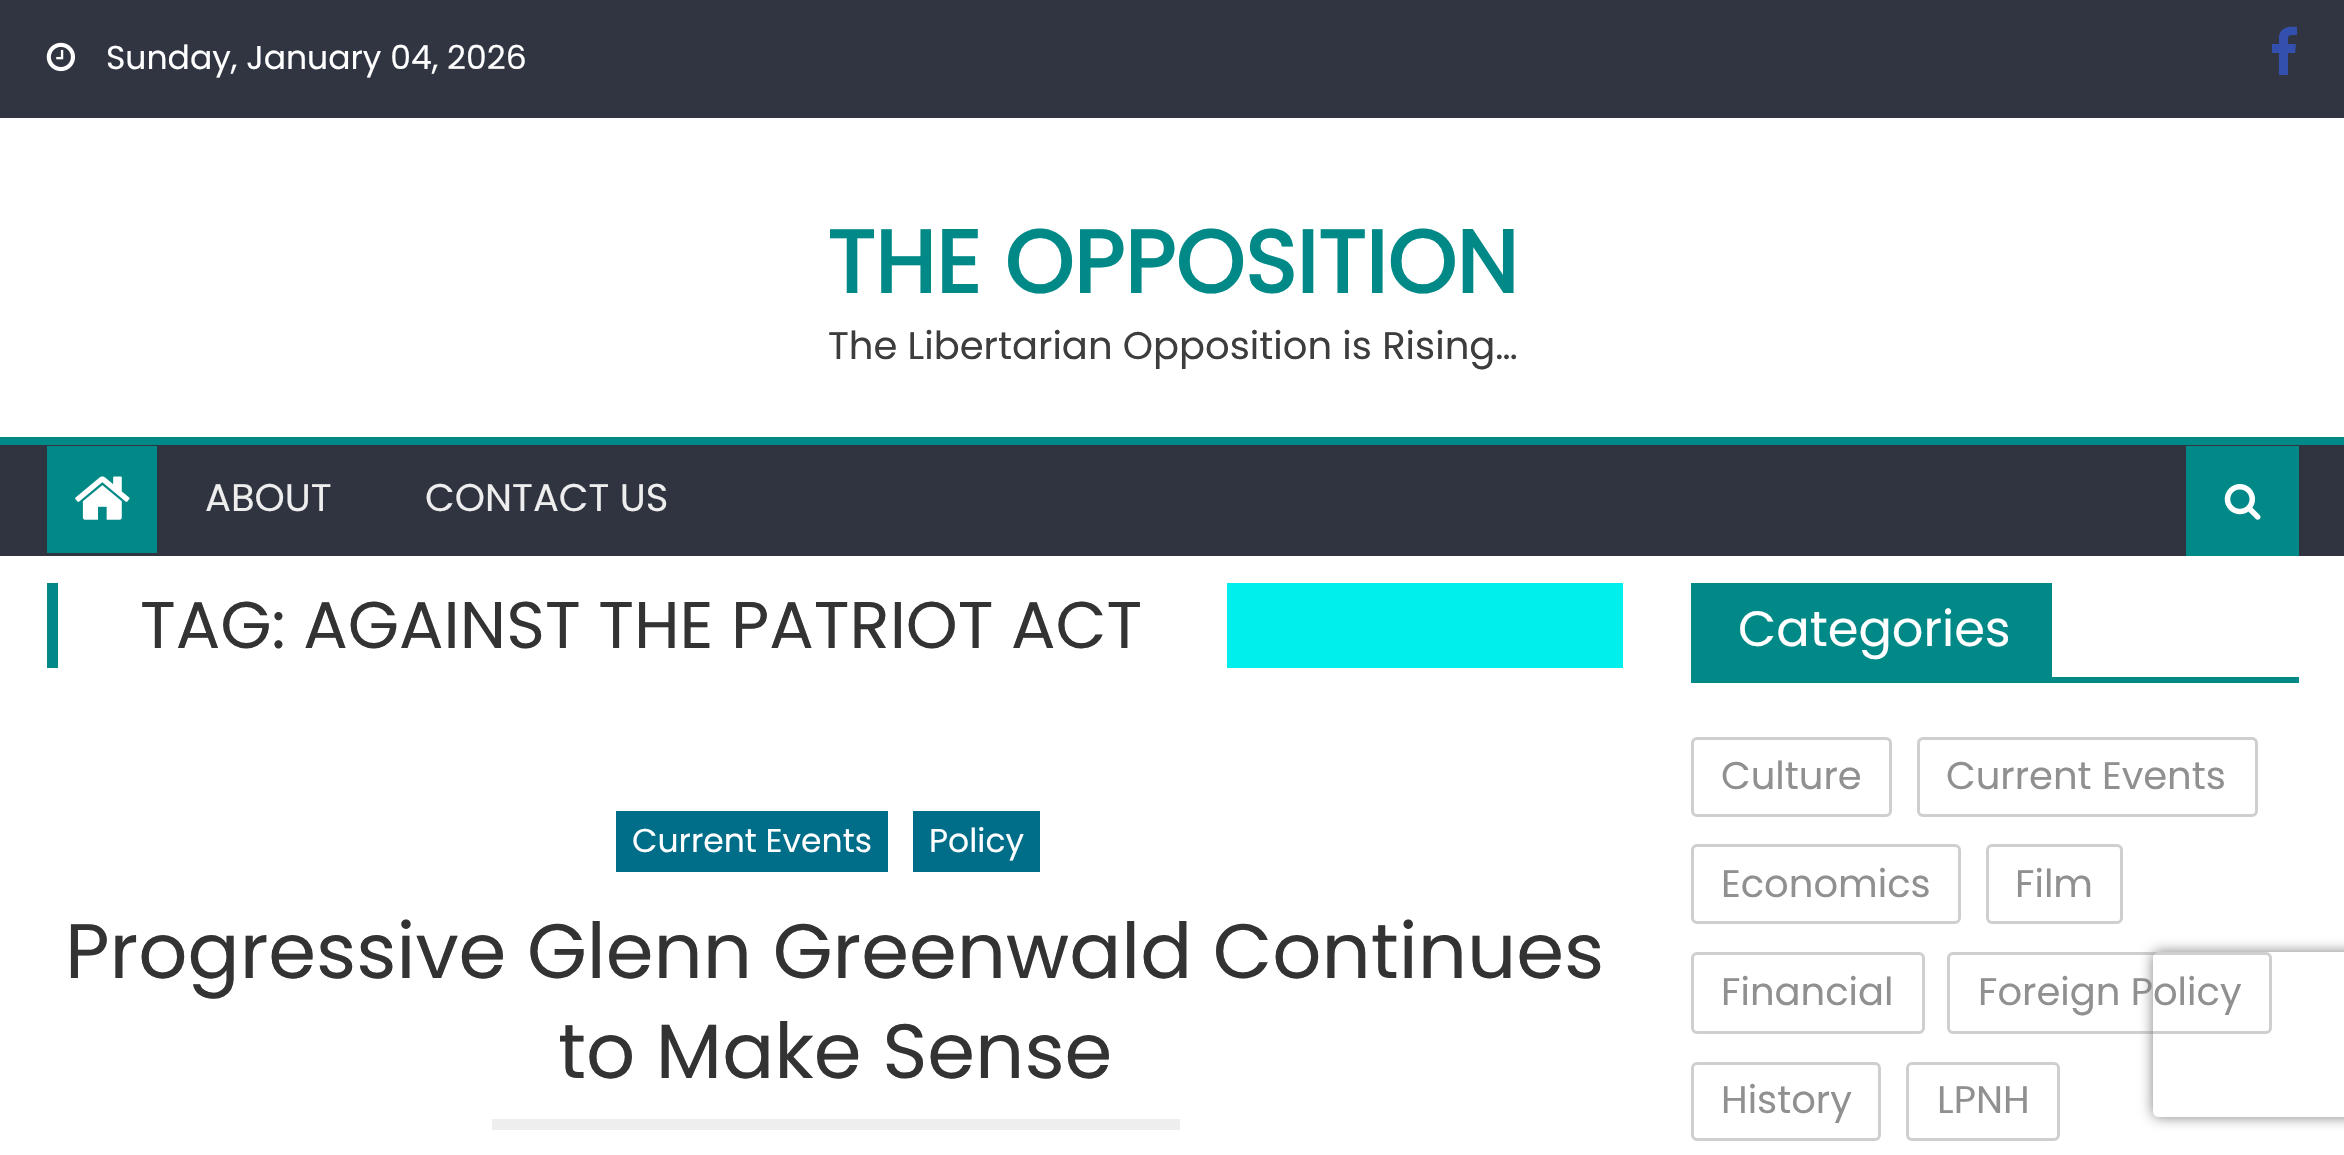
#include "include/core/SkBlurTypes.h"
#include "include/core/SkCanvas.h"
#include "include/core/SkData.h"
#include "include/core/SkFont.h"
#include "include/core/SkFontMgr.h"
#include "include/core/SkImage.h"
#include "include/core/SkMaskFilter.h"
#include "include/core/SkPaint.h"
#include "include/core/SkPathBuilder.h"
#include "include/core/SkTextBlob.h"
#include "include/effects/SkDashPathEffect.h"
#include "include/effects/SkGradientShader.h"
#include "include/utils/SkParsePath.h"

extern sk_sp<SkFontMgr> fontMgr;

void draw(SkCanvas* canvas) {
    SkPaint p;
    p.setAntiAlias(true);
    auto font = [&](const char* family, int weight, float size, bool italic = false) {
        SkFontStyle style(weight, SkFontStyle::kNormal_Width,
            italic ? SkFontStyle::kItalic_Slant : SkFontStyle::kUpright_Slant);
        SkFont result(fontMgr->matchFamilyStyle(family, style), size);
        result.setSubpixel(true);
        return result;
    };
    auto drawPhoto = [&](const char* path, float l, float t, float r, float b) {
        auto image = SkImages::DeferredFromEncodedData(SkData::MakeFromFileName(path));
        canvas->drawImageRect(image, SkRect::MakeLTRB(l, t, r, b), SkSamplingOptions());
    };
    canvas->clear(0xFFFFFFFF);
    p.setColor(0xFF313541);
    canvas->drawRect(SkRect::MakeLTRB(0, 0, 2344, 118), p);
    drawPhoto("media/1.png", 46, 42, 75, 72);
    auto font1 = font("Poppins", 400, 33);
    p.setColor(0xFFFFFFFF);
    canvas->drawString("Sunday, January 04, 2026", 106, 69, font1, p);
    p.setColor(0xFF3350AE);
    canvas->drawPath(SkPathBuilder().moveTo(2297, 27).lineTo(2297, 35).cubicTo(2287, 35, 2288, 35, 2288, 44).lineTo(2296, 44).lineTo(2295, 53).lineTo(2288, 53).lineTo(2288, 75).lineTo(2279, 75).lineTo(2279, 53).lineTo(2272, 53).lineTo(2272, 44).lineTo(2279, 44).lineTo(2279, 36).cubicTo(2281, 27, 2289, 26, 2297, 27).close().detach(), p);
    auto font2 = font("Poppins", 700, 88);
    p.setColor(0xFF008987);
    canvas->drawString("THE OPPOSITION", 827, 293, font2, p);
    auto font3 = font("Poppins", 400, 38.5f);
    p.setColor(0xFF3D3D3D);
    canvas->drawString("The Libertarian Opposition is Rising…", 828, 359, font3, p);
    {
        const struct { float l, t, r, b; SkColor color; } items[] = {
            {0, 445, 2344, 556, 0xFF303440},
            {0, 437, 2344, 445, 0xFF008987},
            {47, 446, 157, 553, 0xFF008987},
        };
        for (auto [l, t, r, b, color] : items) {
            p.setColor(color);
            canvas->drawRect(SkRect::MakeLTRB(l, t, r, b), p);
        }
    }
    drawPhoto("media/2.png", 75, 476, 130, 520);
    p.setColor(0xFFEEEEEE);
    canvas->drawString("ABOUT", 205, 511, font3, p);
    canvas->drawString("CONTACT US", 425, 511, font3, p);
    p.setColor(0xFF008987);
    canvas->drawRect(SkRect::MakeLTRB(2186, 446, 2299, 556), p);
    drawPhoto("media/3.png", 2224, 484, 2261, 520);
    p.setColor(0xFF00EFEC);
    canvas->drawRect(SkRect::MakeLTRB(1227, 583, 1623, 668), p);
    p.setColor(0xFF008987);
    canvas->drawRect(SkRect::MakeLTRB(47, 583, 58, 668), p);
    auto font4 = font("Poppins", 400, 66);
    p.setColor(0xFF333333);
    canvas->drawString("TAG: AGAINST THE PATRIOT ACT", 140, 648, font4, p);
    p.setColor(0xFF006D89);
    canvas->drawRect(SkRect::MakeLTRB(616, 811, 888, 872), p);
    p.setColor(0xFFFFFFFF);
    canvas->drawString("Current Events", 632, 852, font1, p);
    p.setColor(0xFF006D89);
    canvas->drawRect(SkRect::MakeLTRB(913, 811, 1040, 872), p);
    p.setColor(0xFFFFFFFF);
    canvas->drawString("Policy", 929, 852, font1, p);
    auto font5 = font("Poppins", 400, 77);
    p.setColor(0xFF333333);
    canvas->drawString("Progressive Glenn Greenwald Continues", 65, 978, font5, p);
    canvas->drawString("to Make Sense", 558, 1078, font5, p);
    {
        const struct { float l, t, r, b; SkColor color; } items[] = {
            {492, 1119, 1180, 1130, 0xFFEEEEEE},
            {1691, 677, 2299, 683, 0xFF008987},
            {1691, 583, 1697, 682, 0xFF008987},
            {1697, 583, 2052, 677, 0xFF008987},
        };
        for (auto [l, t, r, b, color] : items) {
            p.setColor(color);
            canvas->drawRect(SkRect::MakeLTRB(l, t, r, b), p);
        }
    }
    auto font6 = font("Poppins", 400, 49.5f);
    p.setColor(0xFFFFFFFF);
    canvas->drawString("Categories", 1738, 646, font6, p);
    p.setStyle(SkPaint::kStroke_Style);
    p.setStrokeWidth(3);
    p.setColor(0xFFCFCFCF);
    canvas->drawRoundRect(SkRect::MakeLTRB(1692.5f, 738.5f, 1890.5f, 815.5f), 4.5f, 4.5f, p);
    p.setStyle(SkPaint::kFill_Style);
    p.setColor(0xFF909090);
    canvas->drawString("Culture", 1721, 789, font3, p);
    p.setStyle(SkPaint::kStroke_Style);
    p.setColor(0xFFCFCFCF);
    canvas->drawRoundRect(SkRect::MakeLTRB(1918.5f, 738.5f, 2256.5f, 815.5f), 4.5f, 4.5f, p);
    p.setStyle(SkPaint::kFill_Style);
    p.setColor(0xFF909090);
    canvas->drawString("Current Events", 1946, 789, font3, p);
    p.setStyle(SkPaint::kStroke_Style);
    p.setColor(0xFFCFCFCF);
    canvas->drawRoundRect(SkRect::MakeLTRB(1692.5f, 845.5f, 1959.5f, 922.5f), 4.5f, 4.5f, p);
    p.setStyle(SkPaint::kFill_Style);
    p.setColor(0xFF909090);
    canvas->drawString("Economics", 1721, 897, font3, p);
    p.setStyle(SkPaint::kStroke_Style);
    p.setColor(0xFFCFCFCF);
    canvas->drawRoundRect(SkRect::MakeLTRB(1987.5f, 845.5f, 2121.5f, 922.5f), 4.5f, 4.5f, p);
    p.setStyle(SkPaint::kFill_Style);
    p.setColor(0xFF909090);
    canvas->drawString("Film", 2015, 897, font3, p);
    p.setStyle(SkPaint::kStroke_Style);
    p.setColor(0xFFCFCFCF);
    canvas->drawRoundRect(SkRect::MakeLTRB(1692.5f, 953.5f, 1923.5f, 1032.5f), 4.5f, 4.5f, p);
    p.setStyle(SkPaint::kFill_Style);
    p.setColor(0xFF909090);
    canvas->drawString("Financial", 1721, 1005, font3, p);
    p.setStyle(SkPaint::kStroke_Style);
    p.setColor(0xFFCFCFCF);
    canvas->drawRoundRect(SkRect::MakeLTRB(1948.5f, 953.5f, 2270.5f, 1032.5f), 4.5f, 4.5f, p);
    p.setStyle(SkPaint::kFill_Style);
    p.setColor(0xFF909090);
    canvas->drawString("Foreign Policy", 1978, 1005, font3, p);
    p.setStyle(SkPaint::kStroke_Style);
    p.setColor(0xFFCFCFCF);
    canvas->drawRoundRect(SkRect::MakeLTRB(1692.5f, 1063.5f, 1879.5f, 1139.5f), 4.5f, 4.5f, p);
    p.setStyle(SkPaint::kFill_Style);
    p.setColor(0xFF909090);
    canvas->drawString("History", 1721, 1113, font3, p);
    p.setStyle(SkPaint::kStroke_Style);
    p.setColor(0xFFCFCFCF);
    canvas->drawRoundRect(SkRect::MakeLTRB(1907.5f, 1063.5f, 2058.5f, 1139.5f), 4.5f, 4.5f, p);
    p.setStyle(SkPaint::kFill_Style);
    p.setColor(0xFF909090);
    canvas->drawString("LPNH", 1937, 1113, font3, p);
    canvas->save();
    canvas->clipPath(SkPathBuilder(SkPathFillType::kEvenOdd).moveTo(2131, 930).lineTo(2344, 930).lineTo(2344, 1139).lineTo(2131, 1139).close().moveTo(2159, 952).lineTo(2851, 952).cubicTo(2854.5f, 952, 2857, 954.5f, 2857, 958).lineTo(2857, 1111).cubicTo(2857, 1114.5f, 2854.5f, 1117, 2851, 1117).lineTo(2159, 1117).cubicTo(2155.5f, 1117, 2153, 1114.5f, 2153, 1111).lineTo(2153, 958).cubicTo(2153, 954.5f, 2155.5f, 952, 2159, 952).close().detach(), true);
    p.setColor(0xFF808080);
    p.setMaskFilter(SkMaskFilter::MakeBlur(kNormal_SkBlurStyle, 7));
    canvas->drawRoundRect(SkRect::MakeLTRB(2153, 952, 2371, 1117), 6, 6, p);
    p.setMaskFilter(nullptr);
    canvas->restore();
}
